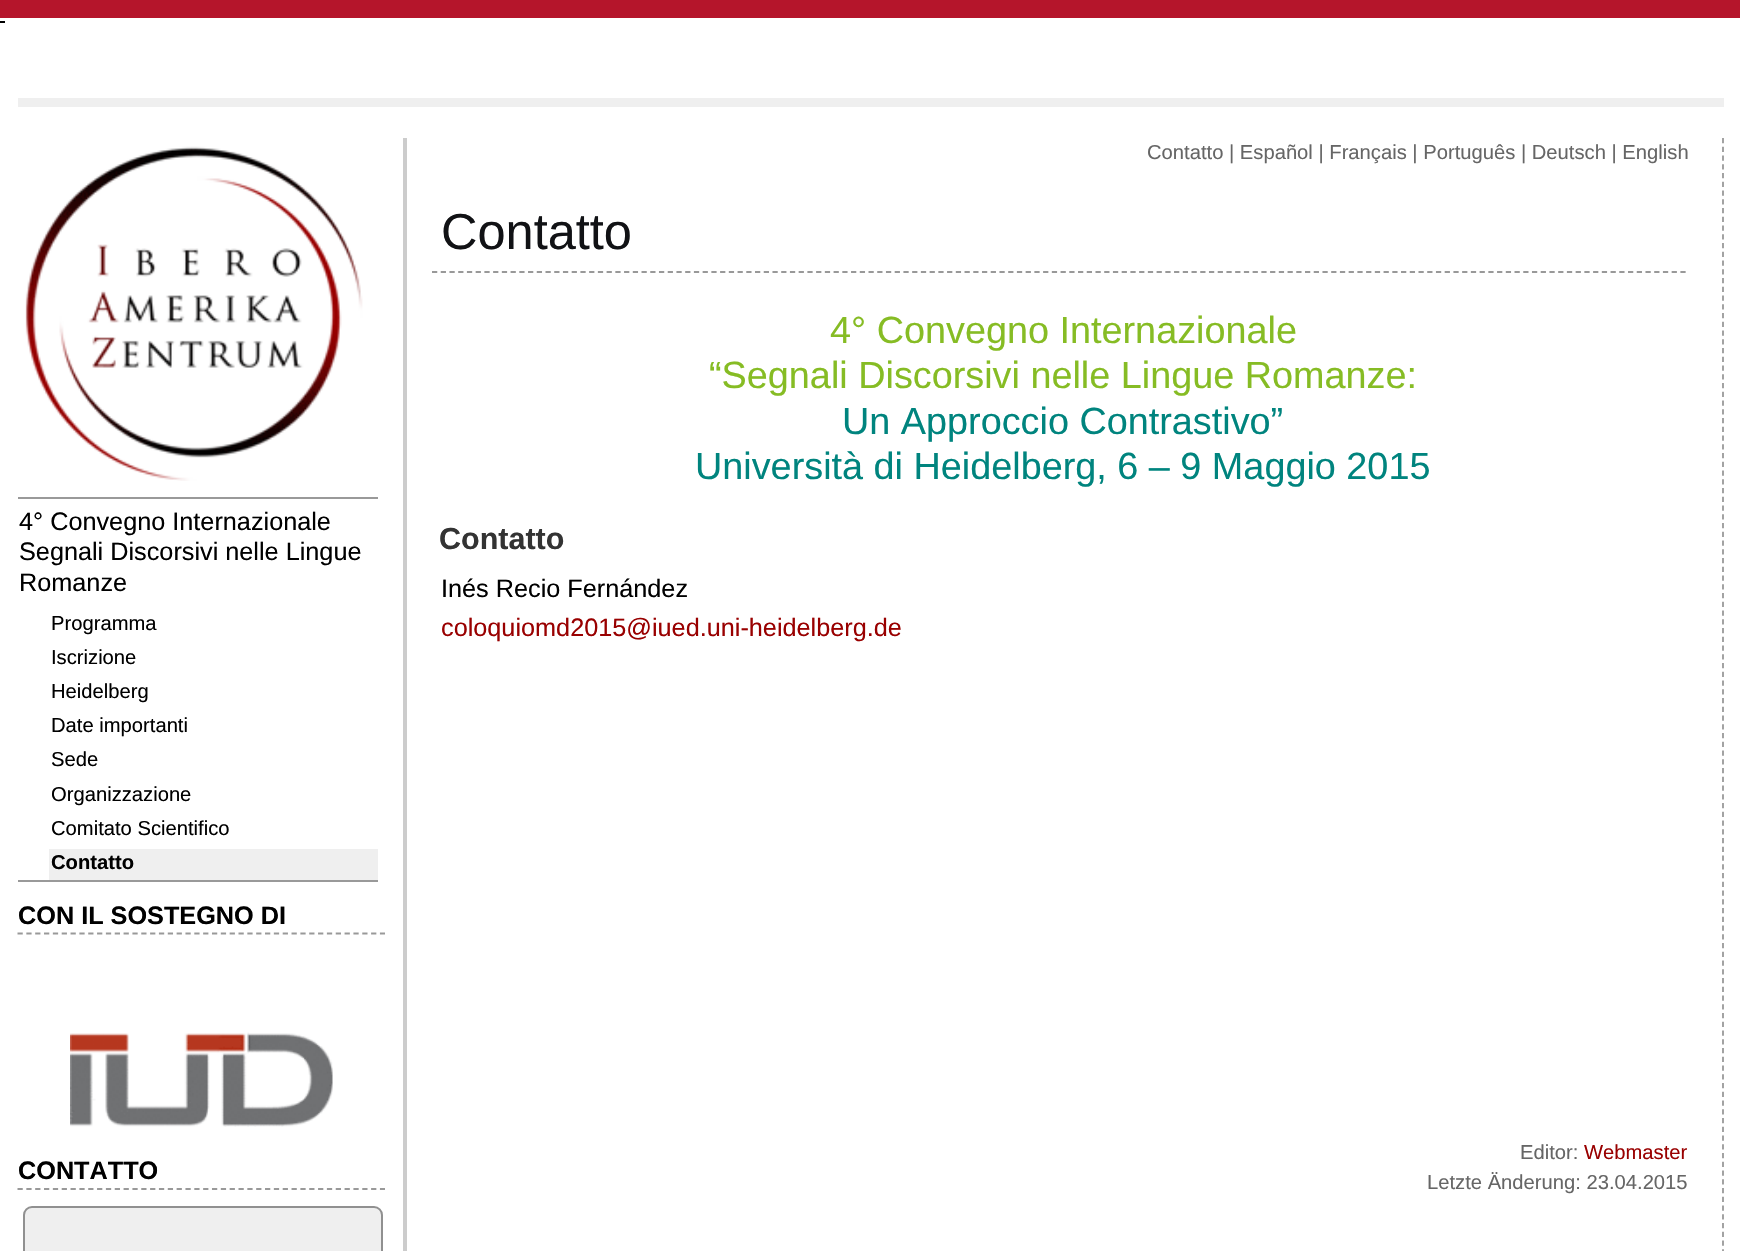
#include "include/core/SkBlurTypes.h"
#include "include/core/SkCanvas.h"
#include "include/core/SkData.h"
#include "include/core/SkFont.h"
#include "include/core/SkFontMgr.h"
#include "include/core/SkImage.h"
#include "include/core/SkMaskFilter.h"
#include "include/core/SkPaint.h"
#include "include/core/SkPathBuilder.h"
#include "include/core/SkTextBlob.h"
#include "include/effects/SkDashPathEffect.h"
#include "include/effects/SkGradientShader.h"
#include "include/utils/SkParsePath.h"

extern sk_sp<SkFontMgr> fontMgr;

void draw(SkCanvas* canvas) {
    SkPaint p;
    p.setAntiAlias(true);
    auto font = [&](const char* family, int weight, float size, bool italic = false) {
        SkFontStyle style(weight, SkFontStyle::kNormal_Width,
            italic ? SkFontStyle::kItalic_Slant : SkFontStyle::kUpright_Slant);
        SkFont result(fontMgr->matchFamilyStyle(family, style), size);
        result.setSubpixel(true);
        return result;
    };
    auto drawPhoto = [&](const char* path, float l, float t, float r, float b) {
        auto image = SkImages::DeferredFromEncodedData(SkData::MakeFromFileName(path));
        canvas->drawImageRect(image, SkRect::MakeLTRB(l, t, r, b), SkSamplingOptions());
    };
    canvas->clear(0xFFFFFFFF);
    {
        const struct { float l, t, r, b; SkColor color; } items[] = {
            {0, 0, 1740, 18, 0xFFB5152B},
            {0, 21, 5, 23, 0xFF000000},
            {18, 98, 1724, 107, 0xFFEFEFEF},
        };
        for (auto [l, t, r, b, color] : items) {
            p.setColor(color);
            canvas->drawRect(SkRect::MakeLTRB(l, t, r, b), p);
        }
    }
    drawPhoto("media/1.png", 25, 146, 363, 481);
    p.setColor(0xFF999999);
    canvas->drawRect(SkRect::MakeLTRB(18, 497, 378, 499), p);
    auto font1 = font("Liberation Sans", 400, 25.25f);
    p.setColor(0xFF000000);
    {
        const struct { const char* s; float x, y; } items[] = {
            {"4° Convegno Internazionale", 19, 530},
            {"Segnali Discorsivi nelle Lingue", 19, 560},
            {"Romanze", 19, 591},
        };
        for (auto [s, x, y] : items) {
            canvas->drawString(s, x, y, font1, p);
        }
    }
    auto font2 = font("Liberation Sans", 400, 20.2f);
    {
        const struct { const char* s; float x, y; } items[] = {
            {"Programma", 51, 630},
            {"Iscrizione", 51, 664},
            {"Heidelberg", 51, 698},
            {"Date importanti", 51, 732},
            {"Sede", 51, 766},
            {"Organizzazione", 51, 801},
            {"Comitato Scientifico", 51, 835},
        };
        for (auto [s, x, y] : items) {
            canvas->drawString(s, x, y, font2, p);
        }
    }
    p.setColor(0xFFEFEFEF);
    canvas->drawRect(SkRect::MakeLTRB(49, 849, 378, 880), p);
    auto font3 = font("Liberation Sans", 700, 20.2f);
    p.setColor(0xFF000000);
    canvas->drawString("Contatto", 51, 869, font3, p);
    p.setColor(0xFF999999);
    canvas->drawRect(SkRect::MakeLTRB(18, 880, 378, 882), p);
    p.setStyle(SkPaint::kStroke_Style);
    p.setStrokeWidth(1.8f);
    p.setPathEffect(SkDashPathEffect::Make({{5.25f, 3.59f}}, 0));
    canvas->drawPath(SkPathBuilder().moveTo(17.5f, 933.5f).lineTo(385, 933.5f).detach(), p);
    p.setPathEffect(nullptr);
    auto font4 = font("Liberation Sans", 700, 25.25f);
    p.setStyle(SkPaint::kFill_Style);
    p.setColor(0xFF000000);
    canvas->drawString("CON IL SOSTEGNO DI", 18, 924, font4, p);
    drawPhoto("media/2.png", 70, 1032, 333, 1127);
    p.setStyle(SkPaint::kStroke_Style);
    p.setColor(0xFF999999);
    p.setPathEffect(SkDashPathEffect::Make({{5.25f, 3.59f}}, 0));
    canvas->drawPath(SkPathBuilder().moveTo(17.5f, 1189).lineTo(385, 1189).detach(), p);
    p.setPathEffect(nullptr);
    p.setStyle(SkPaint::kFill_Style);
    p.setColor(0xFF000000);
    canvas->drawString("CONTATTO", 18, 1179, font4, p);
    p.setColor(0xFFEFEFEF);
    canvas->drawRoundRect(SkRect::MakeLTRB(24, 1207, 382, 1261), 8, 8, p);
    p.setStyle(SkPaint::kStroke_Style);
    p.setStrokeWidth(2);
    p.setColor(0xFF909090);
    canvas->drawRoundRect(SkRect::MakeLTRB(24, 1207, 382, 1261), 8, 8, p);
    p.setStrokeWidth(1.8f);
    p.setColor(0xFF999999);
    p.setPathEffect(SkDashPathEffect::Make({{5.25f, 3.5f}}, 0));
    canvas->drawPath(SkPathBuilder().moveTo(1723, 138).lineTo(1723, 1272).detach(), p);
    p.setPathEffect(nullptr);
    p.setStyle(SkPaint::kFill_Style);
    p.setColor(0xFFCCCCCC);
    canvas->drawRect(SkRect::MakeLTRB(403, 138, 407, 1251), p);
    p.setColor(0xFF666666);
    canvas->drawString("Contatto | Español | Français | Português | Deutsch | English", 1147, 159, font2, p);
    p.setStyle(SkPaint::kStroke_Style);
    p.setColor(0xFF999999);
    p.setPathEffect(SkDashPathEffect::Make({{5.25f, 3.48f}}, 0));
    canvas->drawPath(SkPathBuilder().moveTo(432, 272).lineTo(1687, 272).detach(), p);
    p.setPathEffect(nullptr);
    auto font5 = font("Liberation Sans", 400, 50.5f);
    p.setStyle(SkPaint::kFill_Style);
    p.setColor(0xFF111215);
    canvas->drawString("Contatto", 441, 249, font5, p);
    auto font6 = font("Liberation Sans", 400, 37.8f);
    p.setColor(0xFF86BC24);
    canvas->drawString("4° Convegno Internazionale", 830, 343, font6, p);
    canvas->drawString("“Segnali Discorsivi nelle Lingue Romanze:", 709, 388, font6, p);
    p.setColor(0xFF00847E);
    canvas->drawString("Un Approccio Contrastivo”", 842, 434, font6, p);
    canvas->drawString("Università di Heidelberg, 6 – 9 Maggio 2015", 695, 479, font6, p);
    auto font7 = font("Liberation Sans", 700, 30.5f);
    p.setColor(0xFF333333);
    canvas->drawString("Contatto", 439, 549, font7, p);
    p.setColor(0xFF000000);
    canvas->drawString("Inés Recio Fernández", 441, 597, font1, p);
    p.setColor(0xFF990000);
    canvas->drawString("coloquiomd2015@iued.uni-heidelberg.de", 441, 636, font1, p);
    p.setColor(0xFF666666);
    canvas->drawString("Editor:", 1520, 1159, font2, p);
    p.setColor(0xFF990000);
    canvas->drawString("Webmaster", 1584, 1159, font2, p);
    p.setColor(0xFF666666);
    canvas->drawString("Letzte Änderung: 23.04.2015", 1427, 1189, font2, p);
}
